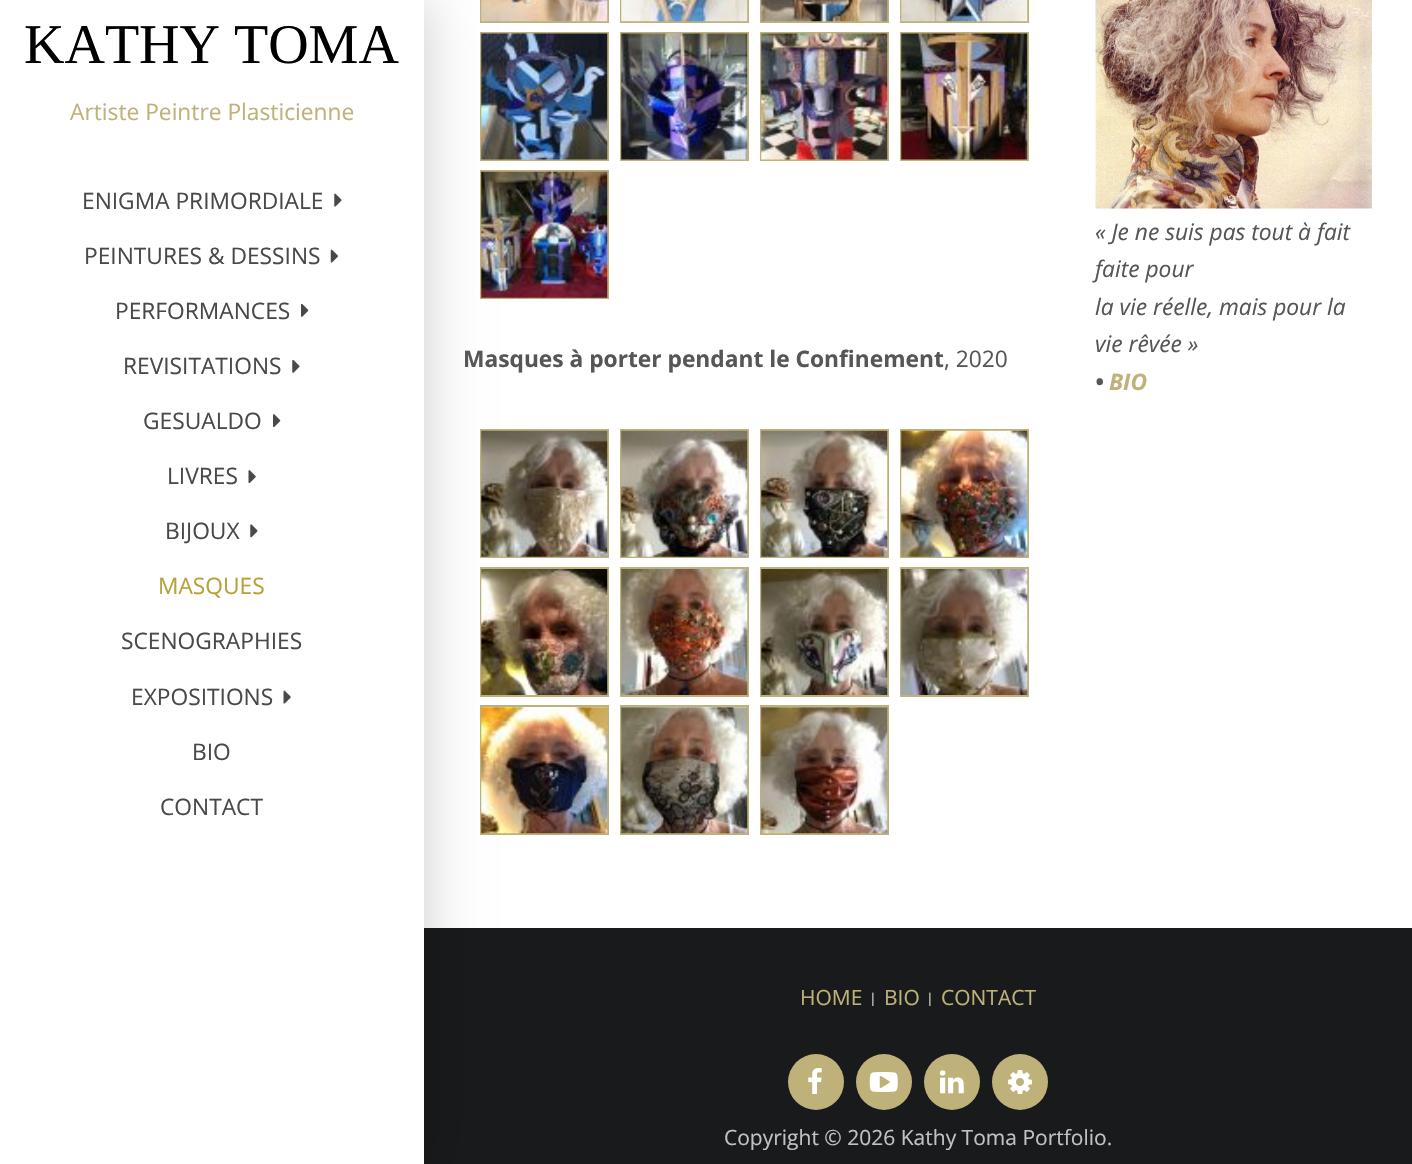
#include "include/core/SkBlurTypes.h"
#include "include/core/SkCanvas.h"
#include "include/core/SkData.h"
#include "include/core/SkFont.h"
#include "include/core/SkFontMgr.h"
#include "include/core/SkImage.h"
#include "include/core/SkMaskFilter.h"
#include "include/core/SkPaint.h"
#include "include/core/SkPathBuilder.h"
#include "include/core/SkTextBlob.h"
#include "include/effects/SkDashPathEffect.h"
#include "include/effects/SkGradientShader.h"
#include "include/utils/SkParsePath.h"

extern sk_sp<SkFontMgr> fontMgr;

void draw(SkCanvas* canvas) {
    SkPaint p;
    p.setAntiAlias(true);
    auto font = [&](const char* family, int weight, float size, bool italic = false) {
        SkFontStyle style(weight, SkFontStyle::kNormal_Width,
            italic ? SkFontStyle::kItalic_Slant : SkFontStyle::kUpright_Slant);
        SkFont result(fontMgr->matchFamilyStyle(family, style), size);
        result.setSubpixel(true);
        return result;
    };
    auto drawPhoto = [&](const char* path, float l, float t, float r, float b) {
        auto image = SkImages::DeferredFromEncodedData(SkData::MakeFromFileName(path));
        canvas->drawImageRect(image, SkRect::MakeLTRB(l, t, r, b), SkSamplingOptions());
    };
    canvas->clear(0xFFFFFFFF);
    p.setStyle(SkPaint::kStroke_Style);
    p.setStrokeWidth(2);
    p.setColor(0xFFBEB27A);
    canvas->drawRect(SkRect::MakeLTRB(481, -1, 608, 22), p);
    drawPhoto("media/9.png", 481, 0, 608, 22);
    canvas->drawRect(SkRect::MakeLTRB(481, 33, 608, 160), p);
    drawPhoto("media/13.png", 481, 33, 608, 160);
    canvas->drawRect(SkRect::MakeLTRB(481, 171, 608, 298), p);
    drawPhoto("media/17.png", 481, 171, 608, 298);
    canvas->drawRect(SkRect::MakeLTRB(481, 430, 608, 557), p);
    drawPhoto("media/18.png", 481, 430, 608, 557);
    canvas->drawRect(SkRect::MakeLTRB(481, 568, 608, 696), p);
    drawPhoto("media/22.png", 481, 569, 608, 695);
    canvas->drawRect(SkRect::MakeLTRB(481, 706, 608, 834), p);
    drawPhoto("media/26.png", 481, 707, 608, 834);
    p.setStyle(SkPaint::kFill_Style);
    p.setColor(0xFF191A1C);
    canvas->drawRect(SkRect::MakeLTRB(424, 928, 1412, 1164), p);
    p.setColor(0x33000000);
    p.setMaskFilter(SkMaskFilter::MakeBlur(kNormal_SkBlurStyle, 26));
    canvas->drawRect(SkRect::MakeLTRB(0, 0, 424, 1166), p);
    p.setMaskFilter(nullptr);
    p.setColor(0xFFFFFFFF);
    canvas->drawRect(SkRect::MakeLTRB(0, 0, 424, 1164), p);
    auto font1 = font("Liberation Serif", 400, 56);
    p.setColor(0xFF000000);
    canvas->drawString("KATHY TOMA", 24, 63, font1, p);
    auto font2 = font("Open Sans", 400, 22.75f);
    p.setColor(0xFFBEB27A);
    canvas->drawString("Artiste Peintre Plasticienne", 70, 120, font2, p);
    p.setColor(0xFF494949);
    canvas->drawString("ENIGMA PRIMORDIALE", 82, 209, font2, p);
    drawPhoto("media/1.png", 334, 193, 342, 207);
    canvas->drawString("PEINTURES & DESSINS", 84, 264, font2, p);
    drawPhoto("media/2.png", 330, 249, 338, 263);
    canvas->drawString("PERFORMANCES", 115, 319, font2, p);
    drawPhoto("media/3.png", 301, 303, 309, 317);
    canvas->drawString("REVISITATIONS", 123, 374, font2, p);
    drawPhoto("media/4.png", 292, 359, 300, 373);
    canvas->drawString("GESUALDO", 143, 429, font2, p);
    drawPhoto("media/5.png", 273, 414, 281, 428);
    canvas->drawString("LIVRES", 167, 484, font2, p);
    drawPhoto("media/6.png", 248, 470, 256, 484);
    canvas->drawString("BIJOUX", 165, 539, font2, p);
    drawPhoto("media/7.png", 250, 524, 258, 538);
    p.setColor(0xFFB8A138);
    canvas->drawString("MASQUES", 158, 594, font2, p);
    p.setColor(0xFF494949);
    canvas->drawString("SCENOGRAPHIES", 121, 649, font2, p);
    canvas->drawString("EXPOSITIONS", 131, 705, font2, p);
    drawPhoto("media/8.png", 283, 690, 291, 704);
    canvas->drawString("BIO", 192, 760, font2, p);
    canvas->drawString("CONTACT", 160, 815, font2, p);
    p.setStyle(SkPaint::kStroke_Style);
    p.setColor(0xFFBEB27A);
    canvas->drawRect(SkRect::MakeLTRB(621, -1, 748, 22), p);
    drawPhoto("media/10.png", 621, 0, 748, 22);
    canvas->drawRect(SkRect::MakeLTRB(761, -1, 888, 22), p);
    drawPhoto("media/11.png", 761, 0, 888, 22);
    canvas->drawRect(SkRect::MakeLTRB(901, -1, 1028, 22), p);
    drawPhoto("media/12.png", 901, 0, 1028, 22);
    canvas->drawRect(SkRect::MakeLTRB(621, 33, 748, 160), p);
    drawPhoto("media/14.png", 621, 33, 748, 160);
    canvas->drawRect(SkRect::MakeLTRB(761, 33, 888, 160), p);
    drawPhoto("media/15.png", 761, 33, 888, 160);
    canvas->drawRect(SkRect::MakeLTRB(901, 33, 1028, 160), p);
    drawPhoto("media/16.png", 901, 33, 1028, 160);
    auto font3 = font("Open Sans", 700, 22.75f);
    p.setStyle(SkPaint::kFill_Style);
    p.setColor(0xFF565656);
    canvas->drawString("Masques à porter pendant le Confinement", 463, 367, font3, p);
    canvas->drawString(", 2020", 944, 367, font2, p);
    p.setStyle(SkPaint::kStroke_Style);
    p.setColor(0xFFBEB27A);
    canvas->drawRect(SkRect::MakeLTRB(621, 430, 748, 557), p);
    drawPhoto("media/19.png", 621, 430, 748, 557);
    canvas->drawRect(SkRect::MakeLTRB(761, 430, 888, 557), p);
    drawPhoto("media/20.png", 761, 430, 888, 557);
    canvas->drawRect(SkRect::MakeLTRB(901, 430, 1028, 557), p);
    drawPhoto("media/21.png", 901, 430, 1028, 557);
    canvas->drawRect(SkRect::MakeLTRB(621, 568, 748, 696), p);
    drawPhoto("media/23.png", 621, 569, 748, 695);
    canvas->drawRect(SkRect::MakeLTRB(761, 568, 888, 696), p);
    drawPhoto("media/24.png", 761, 569, 888, 695);
    canvas->drawRect(SkRect::MakeLTRB(901, 568, 1028, 696), p);
    drawPhoto("media/25.png", 901, 569, 1028, 695);
    canvas->drawRect(SkRect::MakeLTRB(621, 706, 748, 834), p);
    drawPhoto("media/27.png", 621, 707, 748, 834);
    canvas->drawRect(SkRect::MakeLTRB(761, 706, 888, 834), p);
    drawPhoto("media/28.png", 761, 707, 888, 834);
    drawPhoto("media/29.png", 1095, 0, 1372, 209);
    auto font4 = font("Open Sans", 400, 22.75f, true);
    p.setStyle(SkPaint::kFill_Style);
    p.setColor(0xFF565656);
    {
        const struct { const char* s; float x, y; } items[] = {
            {"« Je ne suis pas tout à fait", 1095, 240},
            {"faite pour", 1095, 277},
            {"la vie réelle, mais pour la", 1095, 315},
            {"vie rêvée »", 1095, 352},
        };
        for (auto [s, x, y] : items) {
            canvas->drawString(s, x, y, font4, p);
        }
    }
    auto font5 = font("Open Sans", 700, 22.75f, true);
    canvas->drawString("•", 1095, 390, font5, p);
    p.setColor(0xFFBEB27A);
    canvas->drawString("BIO", 1109, 390, font5, p);
    auto font6 = font("Open Sans", 400, 21);
    canvas->drawString("HOME", 800, 1005, font6, p);
    auto font7 = font("Liberation Sans", 400, 14);
    p.setColor(0xFFC2C2C2);
    canvas->drawString("|", 871, 1003, font7, p);
    p.setColor(0xFFBEB27A);
    canvas->drawString("BIO", 884, 1005, font6, p);
    p.setColor(0xFFC2C2C2);
    canvas->drawString("|", 928, 1003, font7, p);
    p.setColor(0xFFBEB27A);
    canvas->drawString("CONTACT", 941, 1005, font6, p);
    canvas->drawCircle(816, 1082, 28, p);
    drawPhoto("media/30.png", 808, 1068, 822, 1094);
    canvas->drawCircle(884, 1082, 28, p);
    drawPhoto("media/31.png", 869, 1072, 898, 1092);
    canvas->drawCircle(952, 1082, 28, p);
    drawPhoto("media/32.png", 939, 1070, 964, 1094);
    canvas->drawCircle(1020, 1082, 28, p);
    drawPhoto("media/33.png", 1008, 1070, 1032, 1094);
    p.setColor(0xFFC2C2C2);
    canvas->drawString("Copyright © 2026 Kathy Toma Portfolio.", 724, 1145, font6, p);
}
